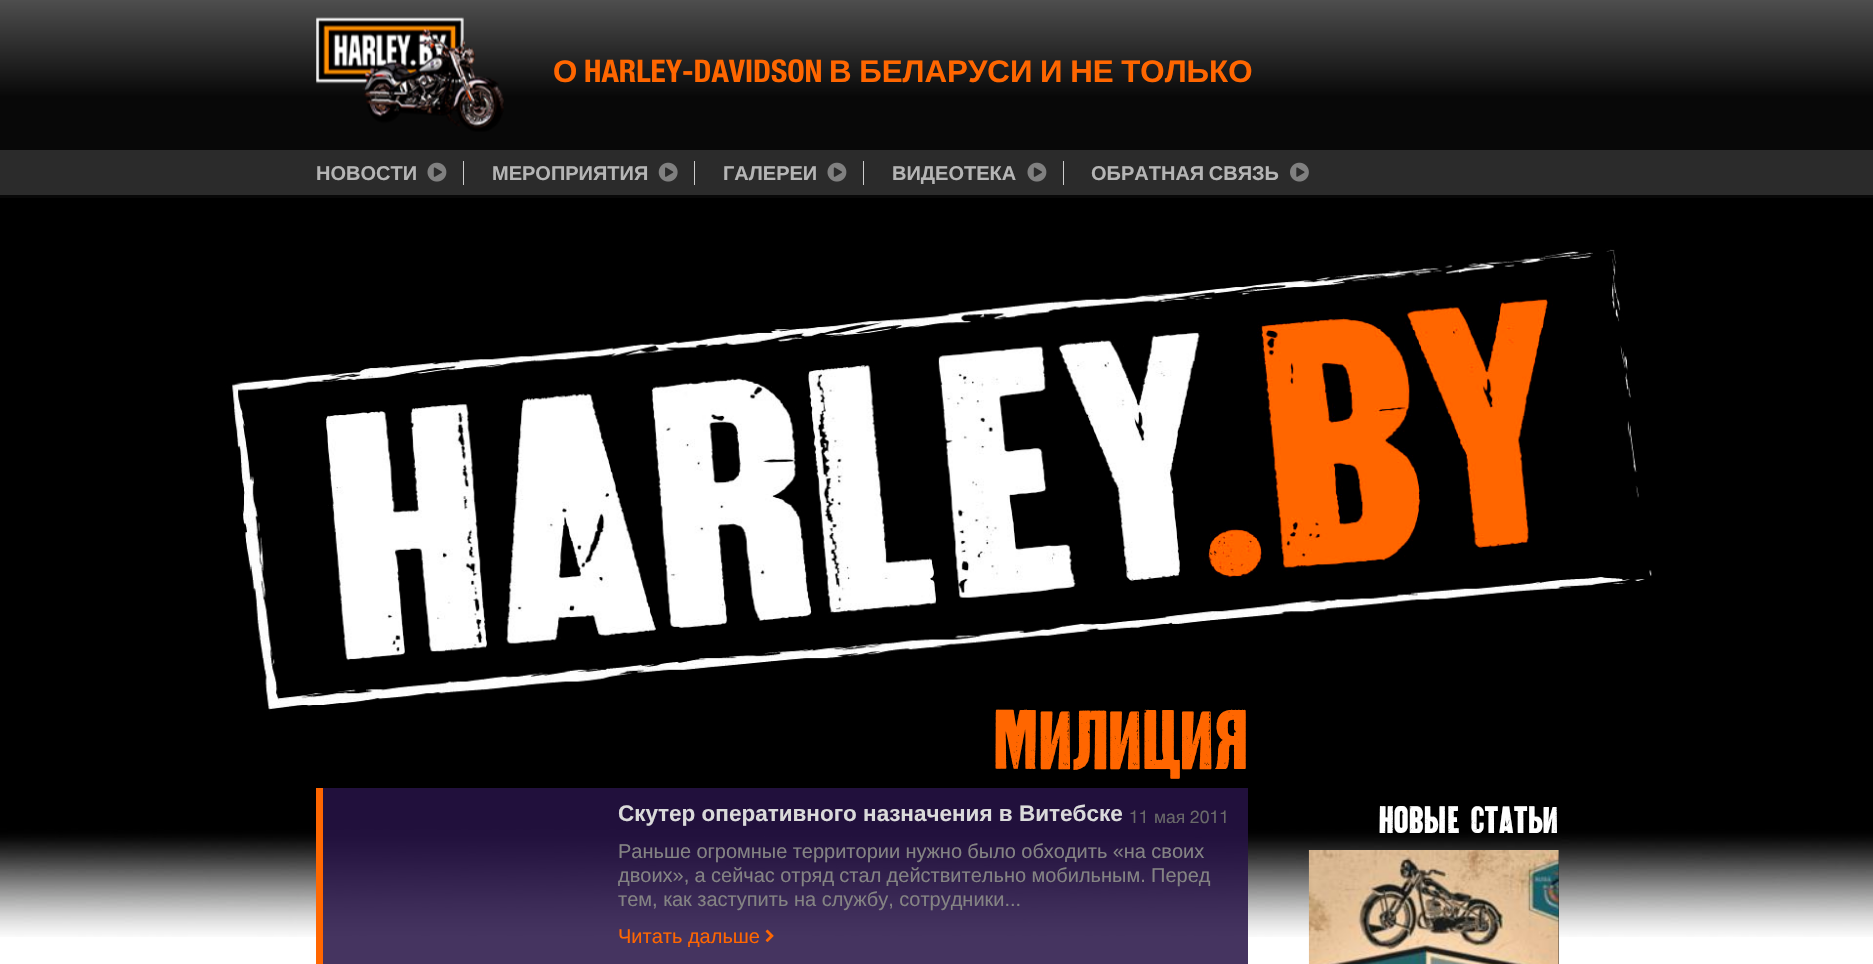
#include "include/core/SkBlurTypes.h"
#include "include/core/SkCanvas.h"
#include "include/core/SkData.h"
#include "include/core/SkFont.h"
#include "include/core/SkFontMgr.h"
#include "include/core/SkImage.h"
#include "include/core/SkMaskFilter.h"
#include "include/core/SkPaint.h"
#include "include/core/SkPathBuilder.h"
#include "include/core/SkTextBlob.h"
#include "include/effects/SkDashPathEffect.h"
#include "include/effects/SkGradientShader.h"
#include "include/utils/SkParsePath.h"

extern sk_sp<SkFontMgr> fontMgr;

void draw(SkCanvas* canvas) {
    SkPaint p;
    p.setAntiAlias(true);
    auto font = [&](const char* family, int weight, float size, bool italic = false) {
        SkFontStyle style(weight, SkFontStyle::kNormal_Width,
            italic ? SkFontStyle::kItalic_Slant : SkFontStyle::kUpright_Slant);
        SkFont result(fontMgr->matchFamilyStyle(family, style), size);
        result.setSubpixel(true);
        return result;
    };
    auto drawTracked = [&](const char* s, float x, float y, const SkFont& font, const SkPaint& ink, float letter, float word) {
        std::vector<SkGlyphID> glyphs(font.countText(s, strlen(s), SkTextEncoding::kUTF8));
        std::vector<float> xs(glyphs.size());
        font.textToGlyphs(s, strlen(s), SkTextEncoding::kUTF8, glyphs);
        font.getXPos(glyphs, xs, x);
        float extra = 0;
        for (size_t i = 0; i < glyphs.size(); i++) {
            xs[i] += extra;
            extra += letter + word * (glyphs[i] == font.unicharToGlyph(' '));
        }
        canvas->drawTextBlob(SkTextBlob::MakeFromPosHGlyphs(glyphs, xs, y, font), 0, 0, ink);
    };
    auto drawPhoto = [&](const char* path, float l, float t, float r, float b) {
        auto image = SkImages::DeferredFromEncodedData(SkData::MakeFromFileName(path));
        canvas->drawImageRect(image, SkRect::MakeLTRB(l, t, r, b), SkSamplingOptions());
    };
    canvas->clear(0xFFFFFFFF);
    {
        const SkColor colors[] = {0xFF4E4E4E, 0xFF080808};
        const float stops[] = {0, 0.49f};
        const SkPoint ends[] = {{937, 0}, {937, 198}};
        p.setShader(SkGradientShader::MakeLinear(ends, colors, stops, 2, SkTileMode::kClamp));
        p.setAlpha(255);
    }
    canvas->drawRect(SkRect::MakeLTRB(0, 0, 1873, 198), p);
    drawPhoto("media/1.png", 316, 17, 504, 132);
    auto font1 = font("Liberation Sans", 700, 31.25f);
    p.setShader(nullptr);
    p.setColor(0xFFFF6600);
    canvas->drawString("О", 553, 82, font1, p);
    auto font2 = font("Helvetica Neue", 700, 31.25f);
    canvas->drawString("HARLEY-DAVIDSON", 584, 82, font2, p);
    drawTracked("В БЕЛАРУСИ И НЕ ТОЛЬКО", 829, 82, font1, p, 0, -1);
    p.setColor(0xFF2B2B2B);
    canvas->drawRect(SkRect::MakeLTRB(0, 150, 1873, 195), p);
    auto font3 = font("Liberation Sans", 700, 20);
    p.setColor(0xFFB5B5B5);
    canvas->drawString("НОВОСТИ", 316, 180, font3, p);
    drawPhoto("media/2.png", 427, 162, 447, 182);
    p.setColor(0xFFCCCCCC);
    canvas->drawRect(SkRect::MakeLTRB(463, 161, 464, 185), p);
    p.setColor(0xFFB5B5B5);
    canvas->drawString("МЕРОПРИЯТИЯ", 492, 180, font3, p);
    drawPhoto("media/3.png", 658, 162, 678, 182);
    p.setColor(0xFFCCCCCC);
    canvas->drawRect(SkRect::MakeLTRB(694, 161, 695, 185), p);
    p.setColor(0xFFB5B5B5);
    canvas->drawString("ГАЛЕРЕИ", 723, 180, font3, p);
    drawPhoto("media/2.png", 827, 162, 847, 182);
    p.setColor(0xFFCCCCCC);
    canvas->drawRect(SkRect::MakeLTRB(863, 161, 864, 185), p);
    p.setColor(0xFFB5B5B5);
    canvas->drawString("ВИДЕОТЕКА", 892, 180, font3, p);
    drawPhoto("media/2.png", 1027, 162, 1047, 182);
    p.setColor(0xFFCCCCCC);
    canvas->drawRect(SkRect::MakeLTRB(1063, 161, 1064, 185), p);
    p.setColor(0xFFB5B5B5);
    drawTracked("ОБРАТНАЯ СВЯЗЬ", 1091, 180, font3, p, 0, -1);
    drawPhoto("media/4.png", 1290, 162, 1309, 182);
    drawPhoto("media/5.png", 0, 198, 1873, 937);
    auto font4 = font("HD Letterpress", 800, 69);
    p.setColor(0xFFFF6600);
    canvas->drawString("МИЛИЦИЯ", 993, 769, font4, p);
    p.setColor(0xDB261346);
    canvas->drawRect(SkRect::MakeLTRB(323, 788, 1248, 964), p);
    p.setColor(0xFFFF6600);
    canvas->drawRect(SkRect::MakeLTRB(316, 788, 323, 964), p);
    auto font5 = font("Liberation Sans", 700, 22.5f);
    p.setColor(0xFFDADADA);
    canvas->drawString("Скутер оперативного назначения в Витебске", 618, 821, font5, p);
    auto font6 = font("Helvetica Neue", 400, 17.5f);
    p.setColor(0xFF696969);
    canvas->drawString("11", 1129, 823, font6, p);
    auto font7 = font("Liberation Sans", 400, 17.5f);
    canvas->drawString("мая", 1154, 823, font7, p);
    canvas->drawString("2011", 1190, 823, font6, p);
    auto font8 = font("Liberation Sans", 400, 20);
    p.setColor(0xFF848383);
    drawTracked("Раньше огромные территории нужно было обходить «на своих", 618, 858, font8, p, 0, -0.25f);
    drawTracked("двоих», а сейчас отряд стал действительно мобильным. Перед", 618, 882, font8, p, 0, -0.25f);
    canvas->drawString("тем, как заступить на службу, сотрудники...", 618, 906, font8, p);
    p.setColor(0xFFFF6600);
    canvas->drawString("Читать дальше", 618, 943, font8, p);
    drawPhoto("media/6.png", 765, 929, 774, 942);
    auto font9 = font("HD Letterpress", 800, 31.25f);
    p.setColor(0xFFFFFFFF);
    canvas->drawString("НОВЫЕ СТАТЬИ", 1379, 833, font9, p);
    p.setColor(0xFF2B2B2B);
    canvas->drawRect(SkRect::MakeLTRB(1558, 850, 1559, 964), p);
    drawPhoto("media/7.png", 1308, 850, 1559, 964);
}
